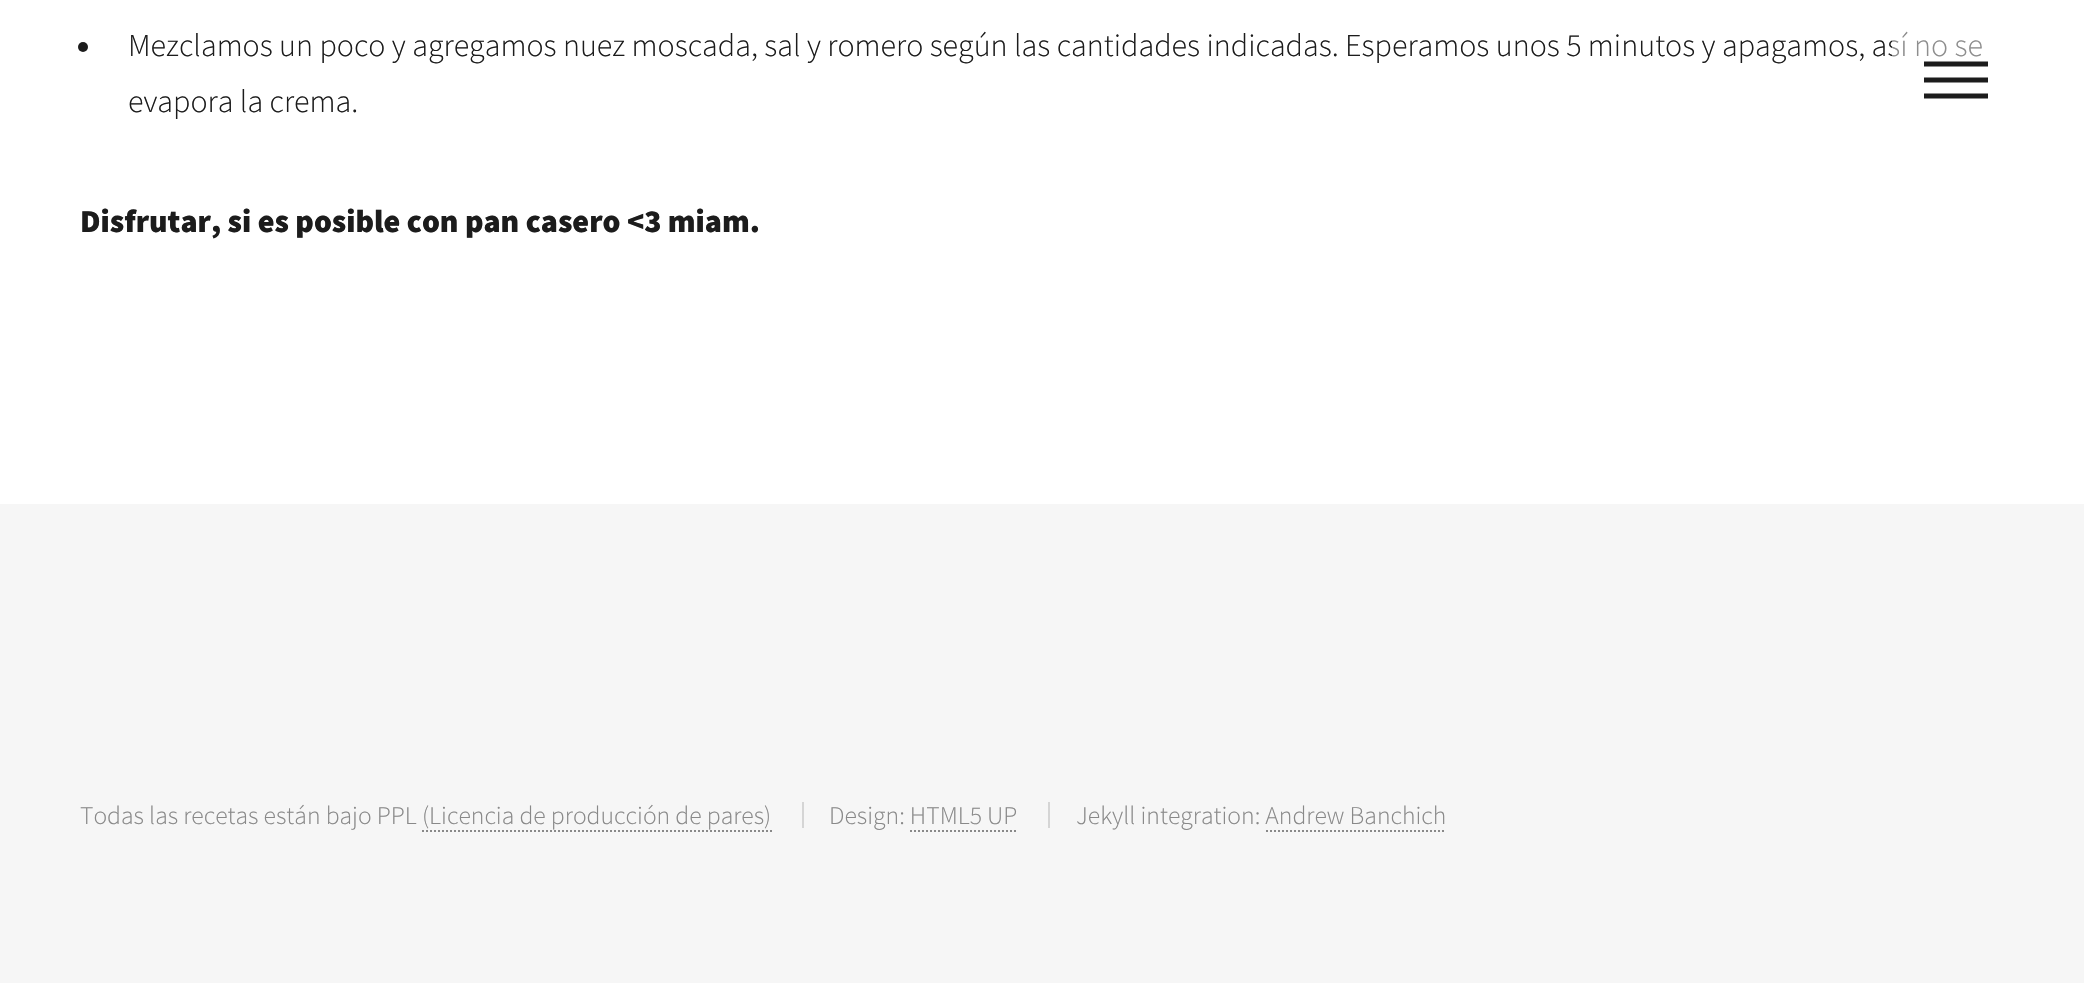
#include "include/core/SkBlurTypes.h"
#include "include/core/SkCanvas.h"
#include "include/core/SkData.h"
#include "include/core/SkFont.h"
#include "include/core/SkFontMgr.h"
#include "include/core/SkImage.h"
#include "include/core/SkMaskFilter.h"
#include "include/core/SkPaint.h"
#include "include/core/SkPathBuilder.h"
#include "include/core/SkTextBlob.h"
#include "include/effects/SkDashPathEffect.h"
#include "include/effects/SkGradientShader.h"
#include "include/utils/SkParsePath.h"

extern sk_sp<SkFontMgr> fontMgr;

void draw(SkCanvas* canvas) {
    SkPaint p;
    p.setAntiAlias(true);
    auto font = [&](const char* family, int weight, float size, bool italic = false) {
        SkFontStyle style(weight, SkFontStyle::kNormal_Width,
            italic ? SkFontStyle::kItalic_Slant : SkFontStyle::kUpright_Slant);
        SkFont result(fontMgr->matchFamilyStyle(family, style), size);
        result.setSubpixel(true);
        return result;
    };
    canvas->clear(0xFFFFFFFF);
    p.setColor(0xFF1C1C1C);
    canvas->drawCircle(83, 47, 5, p);
    auto font1 = font("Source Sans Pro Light", 300, 32);
    canvas->drawString("Mezclamos un poco y agregamos nuez moscada, sal y romero según las cantidades indicadas. Esperamos unos 5 minutos y apagamos, así no se", 128, 56, font1, p);
    canvas->drawString("evapora la crema.", 128, 112, font1, p);
    auto font2 = font("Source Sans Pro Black", 900, 32);
    canvas->drawString("Disfrutar, si es posible con pan casero <3 miam.", 80, 232, font2, p);
    p.setColor(0x80FFFFFF);
    canvas->drawRoundRect(SkRect::MakeLTRB(1892, 32, 2020, 128), 3, 3, p);
    p.setStyle(SkPaint::kStroke_Style);
    p.setStrokeWidth(5.1f);
    p.setColor(0xFF1C1C1C);
    canvas->drawPath(SkPathBuilder().moveTo(1924, 64).lineTo(1988, 64).detach(), p);
    canvas->drawPath(SkPathBuilder().moveTo(1924, 80).lineTo(1988, 80).detach(), p);
    canvas->drawPath(SkPathBuilder().moveTo(1924, 96).lineTo(1988, 96).detach(), p);
    p.setStyle(SkPaint::kFill_Style);
    p.setColor(0xFFF6F6F6);
    canvas->drawRect(SkRect::MakeLTRB(0, 504, 2084, 983), p);
    auto font3 = font("Source Sans Pro Light", 300, 25.6f);
    p.setColor(0xFF898989);
    canvas->drawString("Todas las recetas están bajo PPL (Licencia de producción de pares)", 80, 824, font3, p);
    p.setStyle(SkPaint::kStroke_Style);
    p.setStrokeWidth(2);
    p.setPathEffect(SkDashPathEffect::Make({{2, 2}}, 0));
    canvas->drawPath(SkPathBuilder().moveTo(422, 831).lineTo(772, 831).detach(), p);
    p.setPathEffect(nullptr);
    p.setStyle(SkPaint::kFill_Style);
    p.setColor(0xFFD5D5D5);
    canvas->drawRect(SkRect::MakeLTRB(802, 802, 804, 828), p);
    p.setColor(0xFF898989);
    canvas->drawString("Design: HTML5 UP", 829, 824, font3, p);
    p.setStyle(SkPaint::kStroke_Style);
    p.setPathEffect(SkDashPathEffect::Make({{2, 2}}, 0));
    canvas->drawPath(SkPathBuilder().moveTo(910, 831).lineTo(1018, 831).detach(), p);
    p.setPathEffect(nullptr);
    p.setStyle(SkPaint::kFill_Style);
    p.setColor(0xFFD5D5D5);
    canvas->drawRect(SkRect::MakeLTRB(1048, 802, 1050, 828), p);
    p.setColor(0xFF898989);
    canvas->drawString("Jekyll integration: Andrew Banchich", 1076, 824, font3, p);
    p.setStyle(SkPaint::kStroke_Style);
    p.setPathEffect(SkDashPathEffect::Make({{2, 2}}, 0));
    canvas->drawPath(SkPathBuilder().moveTo(1266, 831).lineTo(1446, 831).detach(), p);
    p.setPathEffect(nullptr);
}
